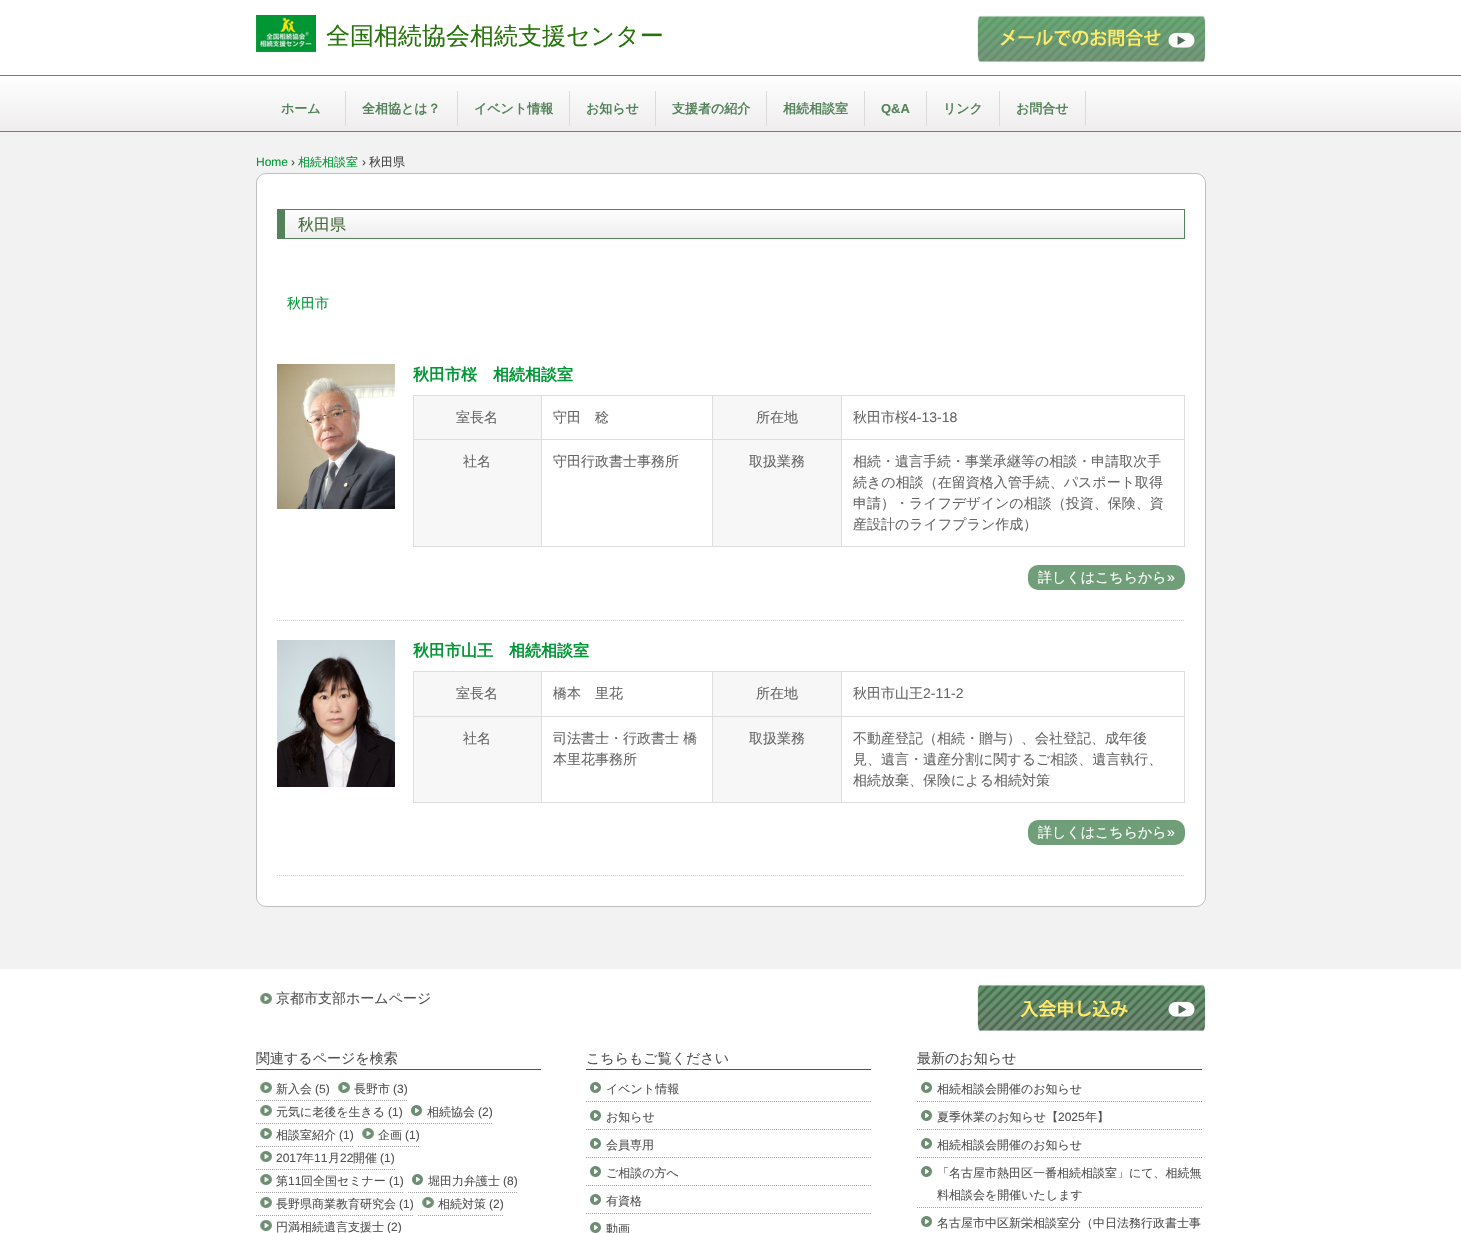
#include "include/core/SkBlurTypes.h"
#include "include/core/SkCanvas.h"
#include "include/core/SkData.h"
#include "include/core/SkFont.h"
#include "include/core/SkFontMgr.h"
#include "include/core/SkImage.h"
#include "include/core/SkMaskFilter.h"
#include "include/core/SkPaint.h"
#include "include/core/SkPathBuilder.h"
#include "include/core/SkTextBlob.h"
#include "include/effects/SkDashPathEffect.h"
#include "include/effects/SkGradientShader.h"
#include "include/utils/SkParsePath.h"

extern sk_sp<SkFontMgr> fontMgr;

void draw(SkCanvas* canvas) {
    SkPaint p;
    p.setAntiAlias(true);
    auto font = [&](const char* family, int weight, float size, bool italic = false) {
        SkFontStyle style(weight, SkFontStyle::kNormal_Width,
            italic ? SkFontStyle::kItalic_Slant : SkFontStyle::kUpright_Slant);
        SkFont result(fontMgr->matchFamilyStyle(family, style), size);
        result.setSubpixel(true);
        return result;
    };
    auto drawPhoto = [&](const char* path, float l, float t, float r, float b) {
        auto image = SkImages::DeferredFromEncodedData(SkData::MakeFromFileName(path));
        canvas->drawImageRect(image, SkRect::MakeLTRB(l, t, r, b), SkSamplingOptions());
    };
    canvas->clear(0xFFF2F2F2);
    p.setColor(0xFFFFFFFF);
    canvas->drawRect(SkRect::MakeLTRB(0, 0, 1461, 75), p);
    drawPhoto("media/1.png", 256, 15, 316, 52);
    auto font1 = font("WenQuanYi Zen Hei", 500, 24);
    p.setColor(0xFF25730A);
    canvas->drawString("全国相続協会相続支援センター", 326, 44, font1, p);
    drawPhoto("media/2.png", 977, 15, 1206, 63);
    {
        const SkColor colors[] = {0xFFFEFEFE, 0xFFEFEDEE};
        const float stops[] = {0, 1};
        const SkPoint ends[] = {{731, 76}, {731, 131}};
        p.setShader(SkGradientShader::MakeLinear(ends, colors, stops, 2, SkTileMode::kClamp));
        p.setAlpha(255);
    }
    canvas->drawRect(SkRect::MakeLTRB(0, 76, 1461, 131), p);
    p.setShader(nullptr);
    {
        const struct { float l, t, r, b; SkColor color; } items[] = {
            {0, 75, 1461, 76, 0xFF5F8B66},
            {0, 131, 1461, 132, 0xFF5F8B66},
            {345, 91, 346, 126, 0xFFDBDBDB},
        };
        for (auto [l, t, r, b, color] : items) {
            p.setColor(color);
            canvas->drawRect(SkRect::MakeLTRB(l, t, r, b), p);
        }
    }
    auto font2 = font("WenQuanYi Zen Hei", 700, 13);
    p.setColor(0xFF54835B);
    canvas->drawString("ホーム", 281, 113, font2, p);
    p.setColor(0xFFDBDBDB);
    canvas->drawRect(SkRect::MakeLTRB(457, 91, 458, 126), p);
    p.setColor(0xFF54835B);
    canvas->drawString("全相協とは？", 362, 113, font2, p);
    p.setColor(0xFFDBDBDB);
    canvas->drawRect(SkRect::MakeLTRB(569, 91, 570, 126), p);
    p.setColor(0xFF54835B);
    canvas->drawString("イベント情報", 474, 113, font2, p);
    p.setColor(0xFFDBDBDB);
    canvas->drawRect(SkRect::MakeLTRB(655, 91, 656, 126), p);
    p.setColor(0xFF54835B);
    canvas->drawString("お知らせ", 586, 113, font2, p);
    p.setColor(0xFFDBDBDB);
    canvas->drawRect(SkRect::MakeLTRB(766, 91, 767, 126), p);
    p.setColor(0xFF54835B);
    canvas->drawString("支援者の紹介", 672, 113, font2, p);
    p.setColor(0xFFDBDBDB);
    canvas->drawRect(SkRect::MakeLTRB(864, 91, 865, 126), p);
    p.setColor(0xFF54835B);
    canvas->drawString("相続相談室", 783, 113, font2, p);
    p.setColor(0xFFDBDBDB);
    canvas->drawRect(SkRect::MakeLTRB(926, 91, 927, 126), p);
    auto font3 = font("Liberation Sans", 700, 13);
    p.setColor(0xFF54835B);
    canvas->drawString("Q&A", 881, 113, font3, p);
    p.setColor(0xFFDBDBDB);
    canvas->drawRect(SkRect::MakeLTRB(999, 91, 1000, 126), p);
    p.setColor(0xFF54835B);
    canvas->drawString("リンク", 943, 113, font2, p);
    p.setColor(0xFFDBDBDB);
    canvas->drawRect(SkRect::MakeLTRB(1085, 91, 1086, 126), p);
    p.setColor(0xFF54835B);
    canvas->drawString("お問合せ", 1016, 113, font2, p);
    auto font4 = font("Liberation Sans", 400, 12);
    p.setColor(0xFF019734);
    canvas->drawString("Home", 256, 166, font4, p);
    p.setColor(0xFF404040);
    canvas->drawString("›", 291, 166, font4, p);
    auto font5 = font("WenQuanYi Zen Hei", 500, 12);
    p.setColor(0xFF019734);
    canvas->drawString("相続相談室", 298, 166, font5, p);
    p.setColor(0xFF404040);
    canvas->drawString("›", 362, 166, font4, p);
    canvas->drawString("秋田県", 369, 166, font5, p);
    p.setColor(0xFFFFFFFF);
    canvas->drawRoundRect(SkRect::MakeLTRB(256.5f, 173.5f, 1205.5f, 906.5f), 9.5f, 9.5f, p);
    p.setStyle(SkPaint::kStroke_Style);
    p.setStrokeWidth(1);
    p.setColor(0xFFBFBFBF);
    canvas->drawRoundRect(SkRect::MakeLTRB(256.5f, 173.5f, 1205.5f, 906.5f), 9.5f, 9.5f, p);
    p.setStyle(SkPaint::kFill_Style);
    {
        const SkColor colors[] = {0xFFFFFFFF, 0xFFEFEDEE};
        const float stops[] = {0, 1};
        const SkPoint ends[] = {{735, 210}, {735, 238}};
        p.setShader(SkGradientShader::MakeLinear(ends, colors, stops, 2, SkTileMode::kClamp));
        p.setAlpha(255);
    }
    canvas->drawRect(SkRect::MakeLTRB(285, 214, 1184, 238), p);
    p.setShader(nullptr);
    {
        const struct { float l, t, r, b; SkColor color; } items[] = {
            {277, 209, 1185, 210, 0xFF54835B},
            {1184, 209, 1185, 239, 0xFF54835B},
            {277, 238, 1185, 239, 0xFF54835B},
            {277, 209, 285, 239, 0xFF54835B},
        };
        for (auto [l, t, r, b, color] : items) {
            p.setColor(color);
            canvas->drawRect(SkRect::MakeLTRB(l, t, r, b), p);
        }
    }
    auto font6 = font("WenQuanYi Zen Hei", 500, 16);
    p.setColor(0xFF456C3D);
    canvas->drawString("秋田県", 298, 230, font6, p);
    auto font7 = font("WenQuanYi Zen Hei", 500, 14);
    p.setColor(0xFF019734);
    canvas->drawString("秋田市", 287, 308, font7, p);
    p.setStyle(SkPaint::kStroke_Style);
    p.setColor(0xFFCCCCCC);
    p.setPathEffect(SkDashPathEffect::Make({{1, 1}}, 0));
    canvas->drawPath(SkPathBuilder().moveTo(277, 620.5f).lineTo(1185, 620.5f).detach(), p);
    p.setPathEffect(nullptr);
    drawPhoto("media/3.png", 277, 364, 395, 509);
    auto font8 = font("WenQuanYi Zen Hei", 700, 16);
    p.setStyle(SkPaint::kFill_Style);
    p.setColor(0xFF019734);
    canvas->drawString("秋田市桜　相続相談室", 413, 380, font8, p);
    {
        const struct { float l, t, r, b; SkColor color; } items[] = {
            {413, 395, 1185, 396, 0xFFDDDDDD},
            {1184, 395, 1185, 547, 0xFFDDDDDD},
            {413, 546, 1185, 547, 0xFFDDDDDD},
            {413, 395, 414, 547, 0xFFDDDDDD},
            {414, 396, 541, 439, 0xFFF7F7F7},
        };
        for (auto [l, t, r, b, color] : items) {
            p.setColor(color);
            canvas->drawRect(SkRect::MakeLTRB(l, t, r, b), p);
        }
    }
    p.setColor(0xFF666666);
    canvas->drawString("室長名", 456, 422, font7, p);
    {
        const struct { float l, t, r, b; SkColor color; } items[] = {
            {841, 439, 1185, 440, 0xFFDDDDDD},
            {841, 439, 842, 547, 0xFFDDDDDD},
            {712, 439, 842, 440, 0xFFDDDDDD},
            {712, 439, 713, 547, 0xFFDDDDDD},
            {541, 439, 713, 440, 0xFFDDDDDD},
            {541, 439, 542, 547, 0xFFDDDDDD},
            {413, 439, 542, 440, 0xFFDDDDDD},
            {541, 395, 542, 440, 0xFFDDDDDD},
        };
        for (auto [l, t, r, b, color] : items) {
            p.setColor(color);
            canvas->drawRect(SkRect::MakeLTRB(l, t, r, b), p);
        }
    }
    p.setColor(0xFF666666);
    canvas->drawString("守田　稔", 553, 422, font7, p);
    p.setColor(0xFFF7F7F7);
    canvas->drawRect(SkRect::MakeLTRB(713, 396, 841, 439), p);
    p.setColor(0xFFDDDDDD);
    canvas->drawRect(SkRect::MakeLTRB(712, 395, 713, 440), p);
    p.setColor(0xFF666666);
    canvas->drawString("所在地", 756, 422, font7, p);
    p.setColor(0xFFDDDDDD);
    canvas->drawRect(SkRect::MakeLTRB(841, 395, 842, 440), p);
    p.setColor(0xFF666666);
    canvas->drawString("秋田市桜", 853, 422, font7, p);
    auto font9 = font("Liberation Sans", 400, 14);
    canvas->drawString("4-13-18", 909, 422, font9, p);
    p.setColor(0xFFF7F7F7);
    canvas->drawRect(SkRect::MakeLTRB(414, 440, 541, 546), p);
    p.setColor(0xFF666666);
    canvas->drawString("社名", 463, 466, font7, p);
    canvas->drawString("守田行政書士事務所", 553, 466, font7, p);
    p.setColor(0xFFF7F7F7);
    canvas->drawRect(SkRect::MakeLTRB(713, 440, 841, 546), p);
    p.setColor(0xFF666666);
    {
        const struct { const char* s; float x, y; } items[] = {
            {"取扱業務", 749, 466},
            {"相続・遺言手続・事業承継等の相談・申請取次手", 853, 466},
            {"続きの相談（在留資格入管手続、パスポート取得", 853, 487},
            {"申請）・ライフデザインの相談（投資、保険、資", 853, 508},
            {"産設計のライフプラン作成）", 853, 529},
        };
        for (auto [s, x, y] : items) {
            canvas->drawString(s, x, y, font7, p);
        }
    }
    p.setColor(0xFF709E79);
    canvas->drawRoundRect(SkRect::MakeLTRB(1028, 565, 1185, 590), 10, 10, p);
    p.setColor(0xFFFFFFFF);
    canvas->drawString("詳しくはこちらから", 1038, 582, font7, p);
    canvas->drawString("»", 1167, 582, font9, p);
    p.setStyle(SkPaint::kStroke_Style);
    p.setColor(0xFFCCCCCC);
    p.setPathEffect(SkDashPathEffect::Make({{1, 1}}, 0));
    canvas->drawPath(SkPathBuilder().moveTo(277, 875.5f).lineTo(1185, 875.5f).detach(), p);
    p.setPathEffect(nullptr);
    drawPhoto("media/4.png", 277, 640, 395, 787);
    p.setStyle(SkPaint::kFill_Style);
    p.setColor(0xFF019734);
    canvas->drawString("秋田市山王　相続相談室", 413, 656, font8, p);
    {
        const struct { float l, t, r, b; SkColor color; } items[] = {
            {413, 671, 1185, 672, 0xFFDDDDDD},
            {1184, 671, 1185, 803, 0xFFDDDDDD},
            {413, 802, 1185, 803, 0xFFDDDDDD},
            {413, 671, 414, 803, 0xFFDDDDDD},
            {414, 672, 541, 716, 0xFFF7F7F7},
        };
        for (auto [l, t, r, b, color] : items) {
            p.setColor(color);
            canvas->drawRect(SkRect::MakeLTRB(l, t, r, b), p);
        }
    }
    p.setColor(0xFF666666);
    canvas->drawString("室長名", 456, 698, font7, p);
    {
        const struct { float l, t, r, b; SkColor color; } items[] = {
            {841, 716, 1185, 717, 0xFFDDDDDD},
            {841, 716, 842, 803, 0xFFDDDDDD},
            {712, 716, 842, 717, 0xFFDDDDDD},
            {712, 716, 713, 803, 0xFFDDDDDD},
            {541, 716, 713, 717, 0xFFDDDDDD},
            {541, 716, 542, 803, 0xFFDDDDDD},
            {413, 716, 542, 717, 0xFFDDDDDD},
            {541, 671, 542, 717, 0xFFDDDDDD},
        };
        for (auto [l, t, r, b, color] : items) {
            p.setColor(color);
            canvas->drawRect(SkRect::MakeLTRB(l, t, r, b), p);
        }
    }
    p.setColor(0xFF666666);
    canvas->drawString("橋本　里花", 553, 698, font7, p);
    p.setColor(0xFFF7F7F7);
    canvas->drawRect(SkRect::MakeLTRB(713, 672, 841, 716), p);
    p.setColor(0xFFDDDDDD);
    canvas->drawRect(SkRect::MakeLTRB(712, 671, 713, 717), p);
    p.setColor(0xFF666666);
    canvas->drawString("所在地", 756, 698, font7, p);
    p.setColor(0xFFDDDDDD);
    canvas->drawRect(SkRect::MakeLTRB(841, 671, 842, 717), p);
    p.setColor(0xFF666666);
    canvas->drawString("秋田市山王", 853, 698, font7, p);
    canvas->drawString("2-11-2", 923, 698, font9, p);
    p.setColor(0xFFF7F7F7);
    canvas->drawRect(SkRect::MakeLTRB(414, 717, 541, 802), p);
    p.setColor(0xFF666666);
    {
        const struct { const char* s; float x, y; } items[] = {
            {"社名", 463, 743},
            {"司法書士・行政書士 橋", 553, 743},
            {"本里花事務所", 553, 764},
        };
        for (auto [s, x, y] : items) {
            canvas->drawString(s, x, y, font7, p);
        }
    }
    p.setColor(0xFFF7F7F7);
    canvas->drawRect(SkRect::MakeLTRB(713, 717, 841, 802), p);
    p.setColor(0xFF666666);
    {
        const struct { const char* s; float x, y; } items[] = {
            {"取扱業務", 749, 743},
            {"不動産登記（相続・贈与）、会社登記、成年後", 853, 743},
            {"見、遺言・遺産分割に関するご相談、遺言執行、", 853, 764},
            {"相続放棄、保険による相続対策", 853, 785},
        };
        for (auto [s, x, y] : items) {
            canvas->drawString(s, x, y, font7, p);
        }
    }
    p.setColor(0xFF709E79);
    canvas->drawRoundRect(SkRect::MakeLTRB(1028, 820, 1185, 845), 10, 10, p);
    p.setColor(0xFFFFFFFF);
    canvas->drawString("詳しくはこちらから", 1038, 837, font7, p);
    canvas->drawString("»", 1167, 837, font9, p);
    canvas->drawRect(SkRect::MakeLTRB(0, 969, 1461, 1233), p);
    drawPhoto("media/5.png", 260, 993, 272, 1004);
    p.setColor(0xFF515151);
    canvas->drawString("京都市支部ホームページ", 276, 1003, font7, p);
    drawPhoto("media/6.png", 977, 984, 1206, 1032);
    canvas->drawRect(SkRect::MakeLTRB(256, 1069, 541, 1070), p);
    canvas->drawString("関連するページを検索", 256, 1063, font7, p);
    drawPhoto("media/5.png", 260, 1082, 272, 1093);
    p.setStyle(SkPaint::kStroke_Style);
    p.setColor(0xFFA0A0A0);
    p.setPathEffect(SkDashPathEffect::Make({{1, 1}}, 0));
    canvas->drawPath(SkPathBuilder().moveTo(256, 1100.5f).lineTo(330, 1100.5f).detach(), p);
    p.setPathEffect(nullptr);
    p.setStyle(SkPaint::kFill_Style);
    p.setColor(0xFF515151);
    canvas->drawString("新入会", 276, 1093, font5, p);
    canvas->drawString("(5)", 315, 1093, font4, p);
    drawPhoto("media/5.png", 338, 1082, 350, 1093);
    p.setStyle(SkPaint::kStroke_Style);
    p.setColor(0xFFA0A0A0);
    p.setPathEffect(SkDashPathEffect::Make({{1, 1}}, 0));
    canvas->drawPath(SkPathBuilder().moveTo(334, 1100.5f).lineTo(408, 1100.5f).detach(), p);
    p.setPathEffect(nullptr);
    p.setStyle(SkPaint::kFill_Style);
    p.setColor(0xFF515151);
    canvas->drawString("長野市", 354, 1093, font5, p);
    canvas->drawString("(3)", 393, 1093, font4, p);
    drawPhoto("media/5.png", 260, 1105, 272, 1116);
    p.setStyle(SkPaint::kStroke_Style);
    p.setColor(0xFFA0A0A0);
    p.setPathEffect(SkDashPathEffect::Make({{1, 1}}, 0));
    canvas->drawPath(SkPathBuilder().moveTo(256, 1123.5f).lineTo(403, 1123.5f).detach(), p);
    p.setPathEffect(nullptr);
    p.setStyle(SkPaint::kFill_Style);
    p.setColor(0xFF515151);
    canvas->drawString("元気に老後を生きる", 276, 1116, font5, p);
    canvas->drawString("(1)", 388, 1116, font4, p);
    drawPhoto("media/7.png", 411, 1105, 422, 1116);
    p.setStyle(SkPaint::kStroke_Style);
    p.setColor(0xFFA0A0A0);
    p.setPathEffect(SkDashPathEffect::Make({{1, 1}}, 0));
    canvas->drawPath(SkPathBuilder().moveTo(407, 1123.5f).lineTo(493, 1123.5f).detach(), p);
    p.setPathEffect(nullptr);
    p.setStyle(SkPaint::kFill_Style);
    p.setColor(0xFF515151);
    canvas->drawString("相続協会", 427, 1116, font5, p);
    canvas->drawString("(2)", 478, 1116, font4, p);
    drawPhoto("media/5.png", 260, 1128, 272, 1139);
    p.setStyle(SkPaint::kStroke_Style);
    p.setColor(0xFFA0A0A0);
    p.setPathEffect(SkDashPathEffect::Make({{1, 1}}, 0));
    canvas->drawPath(SkPathBuilder().moveTo(256, 1146.5f).lineTo(354, 1146.5f).detach(), p);
    p.setPathEffect(nullptr);
    p.setStyle(SkPaint::kFill_Style);
    p.setColor(0xFF515151);
    canvas->drawString("相談室紹介", 276, 1139, font5, p);
    canvas->drawString("(1)", 339, 1139, font4, p);
    drawPhoto("media/5.png", 362, 1128, 374, 1139);
    p.setStyle(SkPaint::kStroke_Style);
    p.setColor(0xFFA0A0A0);
    p.setPathEffect(SkDashPathEffect::Make({{1, 1}}, 0));
    canvas->drawPath(SkPathBuilder().moveTo(358, 1146.5f).lineTo(420, 1146.5f).detach(), p);
    p.setPathEffect(nullptr);
    p.setStyle(SkPaint::kFill_Style);
    p.setColor(0xFF515151);
    canvas->drawString("企画", 378, 1139, font5, p);
    canvas->drawString("(1)", 405, 1139, font4, p);
    drawPhoto("media/5.png", 260, 1151, 272, 1162);
    p.setStyle(SkPaint::kStroke_Style);
    p.setColor(0xFFA0A0A0);
    p.setPathEffect(SkDashPathEffect::Make({{1, 1}}, 0));
    canvas->drawPath(SkPathBuilder().moveTo(256, 1169.5f).lineTo(395, 1169.5f).detach(), p);
    p.setPathEffect(nullptr);
    p.setStyle(SkPaint::kFill_Style);
    p.setColor(0xFF515151);
    canvas->drawString("2017", 276, 1162, font4, p);
    canvas->drawString("年", 302, 1162, font5, p);
    canvas->drawString("11", 314, 1162, font4, p);
    canvas->drawString("月", 328, 1162, font5, p);
    canvas->drawString("22", 340, 1162, font4, p);
    canvas->drawString("開催", 353, 1162, font5, p);
    canvas->drawString("(1)", 380, 1162, font4, p);
    drawPhoto("media/5.png", 260, 1174, 272, 1185);
    p.setStyle(SkPaint::kStroke_Style);
    p.setColor(0xFFA0A0A0);
    p.setPathEffect(SkDashPathEffect::Make({{1, 1}}, 0));
    canvas->drawPath(SkPathBuilder().moveTo(256, 1192.5f).lineTo(404, 1192.5f).detach(), p);
    p.setPathEffect(nullptr);
    p.setStyle(SkPaint::kFill_Style);
    p.setColor(0xFF515151);
    canvas->drawString("第", 276, 1185, font5, p);
    canvas->drawString("11", 288, 1185, font4, p);
    canvas->drawString("回全国セミナー", 301, 1185, font5, p);
    canvas->drawString("(1)", 389, 1185, font4, p);
    drawPhoto("media/7.png", 412, 1174, 423, 1185);
    p.setStyle(SkPaint::kStroke_Style);
    p.setColor(0xFFA0A0A0);
    p.setPathEffect(SkDashPathEffect::Make({{1, 1}}, 0));
    canvas->drawPath(SkPathBuilder().moveTo(408, 1192.5f).lineTo(518, 1192.5f).detach(), p);
    p.setPathEffect(nullptr);
    p.setStyle(SkPaint::kFill_Style);
    p.setColor(0xFF515151);
    canvas->drawString("堀田力弁護士", 428, 1185, font5, p);
    canvas->drawString("(8)", 503, 1185, font4, p);
    drawPhoto("media/5.png", 260, 1197, 272, 1208);
    p.setStyle(SkPaint::kStroke_Style);
    p.setColor(0xFFA0A0A0);
    p.setPathEffect(SkDashPathEffect::Make({{1, 1}}, 0));
    canvas->drawPath(SkPathBuilder().moveTo(256, 1215.5f).lineTo(414, 1215.5f).detach(), p);
    p.setPathEffect(nullptr);
    p.setStyle(SkPaint::kFill_Style);
    p.setColor(0xFF515151);
    canvas->drawString("長野県商業教育研究会", 276, 1208, font5, p);
    canvas->drawString("(1)", 399, 1208, font4, p);
    drawPhoto("media/8.png", 422, 1197, 434, 1208);
    p.setStyle(SkPaint::kStroke_Style);
    p.setColor(0xFFA0A0A0);
    p.setPathEffect(SkDashPathEffect::Make({{1, 1}}, 0));
    canvas->drawPath(SkPathBuilder().moveTo(418, 1215.5f).lineTo(504, 1215.5f).detach(), p);
    p.setPathEffect(nullptr);
    p.setStyle(SkPaint::kFill_Style);
    p.setColor(0xFF515151);
    canvas->drawString("相続対策", 438, 1208, font5, p);
    canvas->drawString("(2)", 489, 1208, font4, p);
    drawPhoto("media/5.png", 260, 1220, 272, 1231);
    canvas->drawString("円満相続遺言支援士", 276, 1231, font5, p);
    canvas->drawString("(2)", 387, 1231, font4, p);
    canvas->drawRect(SkRect::MakeLTRB(586, 1069, 871, 1070), p);
    canvas->drawString("こちらもご覧ください", 586, 1063, font7, p);
    drawPhoto("media/7.png", 590, 1082, 601, 1093);
    p.setStyle(SkPaint::kStroke_Style);
    p.setColor(0xFFA0A0A0);
    p.setPathEffect(SkDashPathEffect::Make({{1, 1}}, 0));
    canvas->drawPath(SkPathBuilder().moveTo(586, 1101.5f).lineTo(871, 1101.5f).detach(), p);
    p.setPathEffect(nullptr);
    p.setStyle(SkPaint::kFill_Style);
    p.setColor(0xFF515151);
    canvas->drawString("イベント情報", 606, 1093, font5, p);
    drawPhoto("media/7.png", 590, 1110, 601, 1121);
    p.setStyle(SkPaint::kStroke_Style);
    p.setColor(0xFFA0A0A0);
    p.setPathEffect(SkDashPathEffect::Make({{1, 1}}, 0));
    canvas->drawPath(SkPathBuilder().moveTo(586, 1129.5f).lineTo(871, 1129.5f).detach(), p);
    p.setPathEffect(nullptr);
    p.setStyle(SkPaint::kFill_Style);
    p.setColor(0xFF515151);
    canvas->drawString("お知らせ", 606, 1121, font5, p);
    drawPhoto("media/7.png", 590, 1138, 601, 1149);
    p.setStyle(SkPaint::kStroke_Style);
    p.setColor(0xFFA0A0A0);
    p.setPathEffect(SkDashPathEffect::Make({{1, 1}}, 0));
    canvas->drawPath(SkPathBuilder().moveTo(586, 1157.5f).lineTo(871, 1157.5f).detach(), p);
    p.setPathEffect(nullptr);
    p.setStyle(SkPaint::kFill_Style);
    p.setColor(0xFF515151);
    canvas->drawString("会員専用", 606, 1149, font5, p);
    drawPhoto("media/7.png", 590, 1166, 601, 1177);
    p.setStyle(SkPaint::kStroke_Style);
    p.setColor(0xFFA0A0A0);
    p.setPathEffect(SkDashPathEffect::Make({{1, 1}}, 0));
    canvas->drawPath(SkPathBuilder().moveTo(586, 1185.5f).lineTo(871, 1185.5f).detach(), p);
    p.setPathEffect(nullptr);
    p.setStyle(SkPaint::kFill_Style);
    p.setColor(0xFF515151);
    canvas->drawString("ご相談の方へ", 606, 1177, font5, p);
    drawPhoto("media/7.png", 590, 1194, 601, 1205);
    p.setStyle(SkPaint::kStroke_Style);
    p.setColor(0xFFA0A0A0);
    p.setPathEffect(SkDashPathEffect::Make({{1, 1}}, 0));
    canvas->drawPath(SkPathBuilder().moveTo(586, 1213.5f).lineTo(871, 1213.5f).detach(), p);
    p.setPathEffect(nullptr);
    p.setStyle(SkPaint::kFill_Style);
    p.setColor(0xFF515151);
    canvas->drawString("有資格", 606, 1205, font5, p);
    drawPhoto("media/7.png", 590, 1222, 601, 1233);
    canvas->drawString("動画", 606, 1233, font5, p);
    canvas->drawRect(SkRect::MakeLTRB(917, 1069, 1202, 1070), p);
    canvas->drawString("最新のお知らせ", 917, 1063, font7, p);
    drawPhoto("media/7.png", 921, 1082, 932, 1093);
    p.setStyle(SkPaint::kStroke_Style);
    p.setColor(0xFFA0A0A0);
    p.setPathEffect(SkDashPathEffect::Make({{1, 1}}, 0));
    canvas->drawPath(SkPathBuilder().moveTo(917, 1101.5f).lineTo(1202, 1101.5f).detach(), p);
    p.setPathEffect(nullptr);
    p.setStyle(SkPaint::kFill_Style);
    p.setColor(0xFF515151);
    canvas->drawString("相続相談会開催のお知らせ", 937, 1093, font5, p);
    drawPhoto("media/7.png", 921, 1110, 932, 1121);
    p.setStyle(SkPaint::kStroke_Style);
    p.setColor(0xFFA0A0A0);
    p.setPathEffect(SkDashPathEffect::Make({{1, 1}}, 0));
    canvas->drawPath(SkPathBuilder().moveTo(917, 1129.5f).lineTo(1202, 1129.5f).detach(), p);
    p.setPathEffect(nullptr);
    p.setStyle(SkPaint::kFill_Style);
    p.setColor(0xFF515151);
    canvas->drawString("夏季休業のお知らせ【", 937, 1121, font5, p);
    canvas->drawString("2025", 1058, 1121, font4, p);
    canvas->drawString("年】", 1085, 1121, font5, p);
    drawPhoto("media/7.png", 921, 1138, 932, 1149);
    p.setStyle(SkPaint::kStroke_Style);
    p.setColor(0xFFA0A0A0);
    p.setPathEffect(SkDashPathEffect::Make({{1, 1}}, 0));
    canvas->drawPath(SkPathBuilder().moveTo(917, 1157.5f).lineTo(1202, 1157.5f).detach(), p);
    p.setPathEffect(nullptr);
    p.setStyle(SkPaint::kFill_Style);
    p.setColor(0xFF515151);
    canvas->drawString("相続相談会開催のお知らせ", 937, 1149, font5, p);
    drawPhoto("media/7.png", 921, 1166, 932, 1177);
    p.setStyle(SkPaint::kStroke_Style);
    p.setColor(0xFFA0A0A0);
    p.setPathEffect(SkDashPathEffect::Make({{1, 1}}, 0));
    canvas->drawPath(SkPathBuilder().moveTo(917, 1207.5f).lineTo(1202, 1207.5f).detach(), p);
    p.setPathEffect(nullptr);
    p.setStyle(SkPaint::kFill_Style);
    p.setColor(0xFF515151);
    canvas->drawString("「名古屋市熱田区一番相続相談室」にて、相続無", 937, 1177, font5, p);
    canvas->drawString("料相談会を開催いたします", 937, 1199, font5, p);
    drawPhoto("media/7.png", 921, 1216, 932, 1227);
    canvas->drawString("名古屋市中区新栄相談室分（中日法務行政書士事", 937, 1227, font5, p);
}
